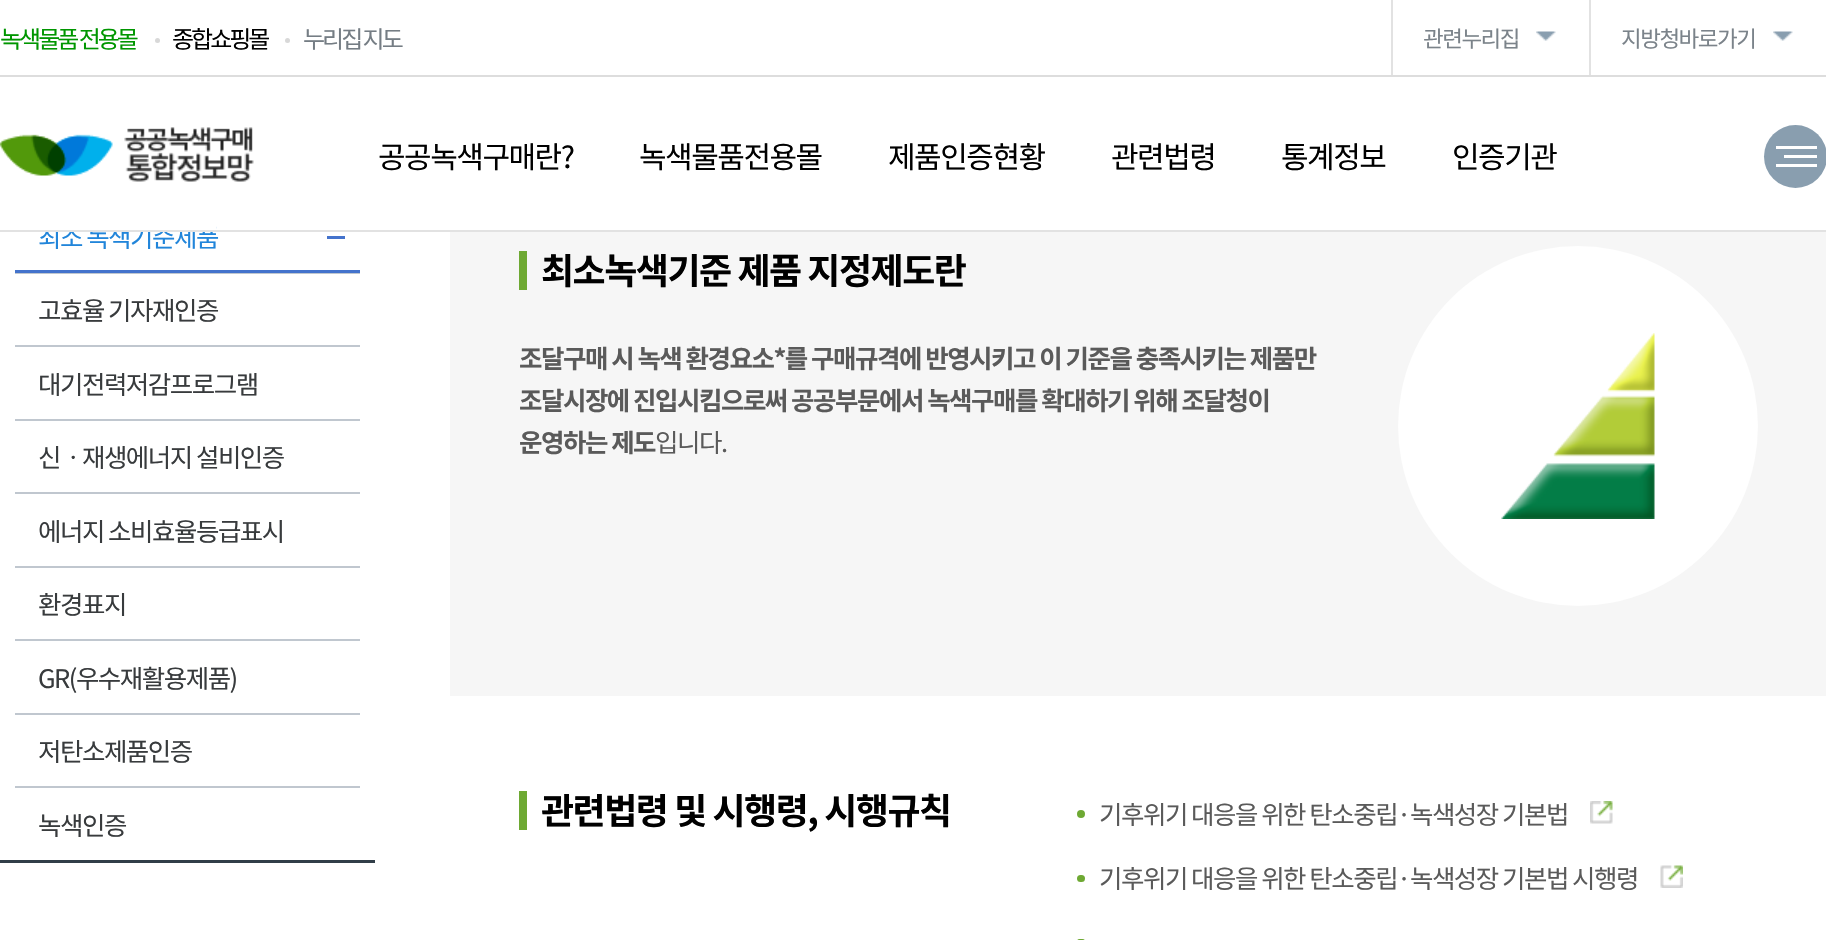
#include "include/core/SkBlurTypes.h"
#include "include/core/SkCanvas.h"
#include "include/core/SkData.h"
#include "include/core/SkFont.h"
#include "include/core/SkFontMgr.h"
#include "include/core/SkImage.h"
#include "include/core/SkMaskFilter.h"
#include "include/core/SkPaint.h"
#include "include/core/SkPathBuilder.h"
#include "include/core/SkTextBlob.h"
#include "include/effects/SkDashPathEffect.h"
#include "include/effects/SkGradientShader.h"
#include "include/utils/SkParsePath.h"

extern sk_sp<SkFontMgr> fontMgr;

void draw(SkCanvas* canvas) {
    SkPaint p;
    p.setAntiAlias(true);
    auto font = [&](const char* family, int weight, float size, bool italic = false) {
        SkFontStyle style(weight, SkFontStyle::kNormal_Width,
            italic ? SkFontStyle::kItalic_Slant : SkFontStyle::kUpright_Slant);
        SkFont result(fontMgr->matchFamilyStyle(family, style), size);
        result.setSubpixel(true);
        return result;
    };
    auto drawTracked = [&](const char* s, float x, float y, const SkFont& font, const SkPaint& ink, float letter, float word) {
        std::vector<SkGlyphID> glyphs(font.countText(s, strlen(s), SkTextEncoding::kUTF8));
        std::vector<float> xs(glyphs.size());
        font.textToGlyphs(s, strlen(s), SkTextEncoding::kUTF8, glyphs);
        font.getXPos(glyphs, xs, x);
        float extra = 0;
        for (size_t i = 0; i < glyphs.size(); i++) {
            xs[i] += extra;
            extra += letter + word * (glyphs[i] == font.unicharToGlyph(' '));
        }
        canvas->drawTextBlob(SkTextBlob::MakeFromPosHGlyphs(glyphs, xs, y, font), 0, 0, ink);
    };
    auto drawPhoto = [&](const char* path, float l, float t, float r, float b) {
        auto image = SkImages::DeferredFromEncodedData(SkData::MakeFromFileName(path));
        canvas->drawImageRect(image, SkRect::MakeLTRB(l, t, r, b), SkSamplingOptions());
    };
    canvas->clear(0xFFFFFFFF);
    auto font1 = font("Noto Sans KR", 400, 25.5f);
    p.setColor(0xFF2185DA);
    drawTracked("최소 녹색기준제품", 38, 247, font1, p, -1.5f, 0);
    p.setColor(0xFFFFFFFF);
    canvas->drawRect(SkRect::MakeLTRB(40, 226, 216, 230), p);
    p.setColor(0xFFE2E2E2);
    canvas->drawRect(SkRect::MakeLTRB(0, 230, 1826, 232), p);
    auto font2 = font("Noto Sans KR", 400, 24);
    p.setColor(0xFF009600);
    drawTracked("녹색물품 전용몰", 0, 48, font2, p, -3, 0);
    p.setColor(0xFFD8D8D8);
    canvas->drawCircle(157.5f, 40.5f, 2.5f, p);
    p.setColor(0xFF000000);
    drawTracked("종합쇼핑몰", 172, 48, font2, p, -3, 0);
    p.setColor(0xFFD8D8D8);
    canvas->drawCircle(287.5f, 40.5f, 2.5f, p);
    p.setColor(0xFF757D84);
    drawTracked("누리집 지도", 303, 48, font2, p, -3, 0);
    drawPhoto("media/1.png", 1536, 31, 1556, 41);
    p.setColor(0xFFE2E2E2);
    canvas->drawRect(SkRect::MakeLTRB(1391, 0, 1393, 75), p);
    auto font3 = font("Noto Sans KR", 400, 22.5f);
    p.setColor(0xFF7B838A);
    drawTracked("관련누리집", 1423, 47, font3, p, -1.5f, 0);
    drawPhoto("media/1.png", 1773, 31, 1793, 41);
    p.setColor(0xFFE2E2E2);
    canvas->drawRect(SkRect::MakeLTRB(1589, 0, 1591, 75), p);
    p.setColor(0xFF7B838A);
    drawTracked("지방청바로가기", 1621, 47, font3, p, -1.5f, 0);
    p.setColor(0xFF899EAF);
    canvas->drawCircle(1795.5f, 156.5f, 31.5f, p);
    {
        const struct { float l, t, r, b; SkColor color; } items[] = {
            {1776, 146, 1817, 149, 0xFFFFFFFF},
            {1776, 164, 1817, 167, 0xFFFFFFFF},
            {1784, 155, 1817, 158, 0xFFFFFFFF},
        };
        for (auto [l, t, r, b, color] : items) {
            p.setColor(color);
            canvas->drawRect(SkRect::MakeLTRB(l, t, r, b), p);
        }
    }
    drawPhoto("media/2.png", 0, 127, 254, 182);
    p.setColor(0xFFDDDDDD);
    canvas->drawRect(SkRect::MakeLTRB(0, 75, 1826, 77), p);
    auto font4 = font("Noto Sans KR", 400, 30);
    p.setColor(0xFF000000);
    {
        const struct { const char* s; float x, y; } items[] = {
            {"공공녹색구매란?", 378, 168},
            {"녹색물품전용몰", 639, 168},
            {"제품인증현황", 888, 168},
            {"관련법령", 1111, 168},
            {"통계정보", 1281, 168},
            {"인증기관", 1452, 168},
        };
        for (auto [s, x, y] : items) {
            drawTracked(s, x, y, font4, p, -1.5f, 0);
        }
    }
    {
        const struct { float l, t, r, b; SkColor color; } items[] = {
            {0, 860, 375, 863, 0xFF313E48},
            {15, 273, 360, 274, 0xFFC0C7CF},
            {327, 236, 345, 239, 0xFF4473CC},
            {15, 270, 360, 273, 0xFF4473CC},
            {15, 345, 360, 347, 0xFFC0C7CF},
        };
        for (auto [l, t, r, b, color] : items) {
            p.setColor(color);
            canvas->drawRect(SkRect::MakeLTRB(l, t, r, b), p);
        }
    }
    p.setColor(0xFF383B3D);
    drawTracked("고효율 기자재인증", 38, 320, font1, p, -1.5f, 0);
    p.setColor(0xFFC0C7CF);
    canvas->drawRect(SkRect::MakeLTRB(15, 419, 360, 421), p);
    p.setColor(0xFF383B3D);
    drawTracked("대기전력저감프로그램", 38, 394, font1, p, -1.5f, 0);
    p.setColor(0xFFC0C7CF);
    canvas->drawRect(SkRect::MakeLTRB(15, 492, 360, 494), p);
    p.setColor(0xFF383B3D);
    drawTracked("신ㆍ재생에너지 설비인증", 38, 467, font1, p, -1.5f, 0);
    p.setColor(0xFFC0C7CF);
    canvas->drawRect(SkRect::MakeLTRB(15, 566, 360, 568), p);
    p.setColor(0xFF383B3D);
    drawTracked("에너지 소비효율등급표시", 38, 541, font1, p, -1.5f, 0);
    p.setColor(0xFFC0C7CF);
    canvas->drawRect(SkRect::MakeLTRB(15, 639, 360, 641), p);
    p.setColor(0xFF383B3D);
    drawTracked("환경표지", 38, 614, font1, p, -1.5f, 0);
    p.setColor(0xFFC0C7CF);
    canvas->drawRect(SkRect::MakeLTRB(15, 713, 360, 715), p);
    p.setColor(0xFF383B3D);
    drawTracked("GR(우수재활용제품)", 38, 688, font1, p, -1.5f, 0);
    p.setColor(0xFFC0C7CF);
    canvas->drawRect(SkRect::MakeLTRB(15, 786, 360, 788), p);
    p.setColor(0xFF383B3D);
    drawTracked("저탄소제품인증", 38, 761, font1, p, -1.5f, 0);
    drawTracked("녹색인증", 38, 835, font1, p, -1.5f, 0);
    p.setColor(0xFFF6F6F6);
    canvas->drawRect(SkRect::MakeLTRB(450, 232, 1826, 696), p);
    p.setColor(0xFF6EA933);
    canvas->drawRect(SkRect::MakeLTRB(519, 251, 527, 290), p);
    auto font5 = font("Noto Sans KR", 700, 36);
    p.setColor(0xFF000000);
    drawTracked("최소녹색기준 제품 지정제도란", 541, 284, font5, p, -1.5f, 0);
    auto font6 = font("Noto Sans KR", 700, 25.5f);
    p.setColor(0xFF5A5A5A);
    {
        const struct { const char* s; float x, y; } items[] = {
            {"조달구매 시 녹색 환경요소*를 구매규격에 반영시키고 이 기준을 충족시키는 제품만", 519, 368},
            {"조달시장에 진입시킴으로써 공공부문에서 녹색구매를 확대하기 위해 조달청이", 519, 410},
            {"운영하는 제도", 519, 452},
        };
        for (auto [s, x, y] : items) {
            drawTracked(s, x, y, font6, p, -1.5f, 0);
        }
    }
    drawTracked("입니다.", 655, 452, font1, p, -1.5f, 0);
    p.setColor(0xFFFFFFFF);
    canvas->drawCircle(1578, 426, 180, p);
    drawPhoto("media/3.png", 1501, 333, 1655, 519);
    p.setColor(0xFF6EA933);
    canvas->drawRect(SkRect::MakeLTRB(519, 791, 527, 830), p);
    p.setColor(0xFF000000);
    drawTracked("관련법령 및 시행령, 시행규칙", 541, 824, font5, p, -1.5f, 0);
    p.setColor(0xFF6EA933);
    canvas->drawCircle(1081, 814, 4, p);
    p.setColor(0xFF5A5A5A);
    drawTracked("기후위기 대응을 위한 탄소중립·녹색성장 기본법", 1099, 824, font1, p, -1.5f, 0);
    drawPhoto("media/4.png", 1590, 801, 1613, 824);
    p.setColor(0xFF6EA933);
    canvas->drawRoundRect(SkRect::MakeLTRB(1077, 875, 1085, 882), 3.5f, 3.5f, p);
    p.setColor(0xFF5A5A5A);
    drawTracked("기후위기 대응을 위한 탄소중립·녹색성장 기본법 시행령", 1099, 888, font1, p, -1.5f, 0);
    drawPhoto("media/5.png", 1660, 865, 1683, 888);
    p.setColor(0xFF6EA933);
    canvas->drawRoundRect(SkRect::MakeLTRB(1077, 939, 1085, 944), 4, 4, p);
}
